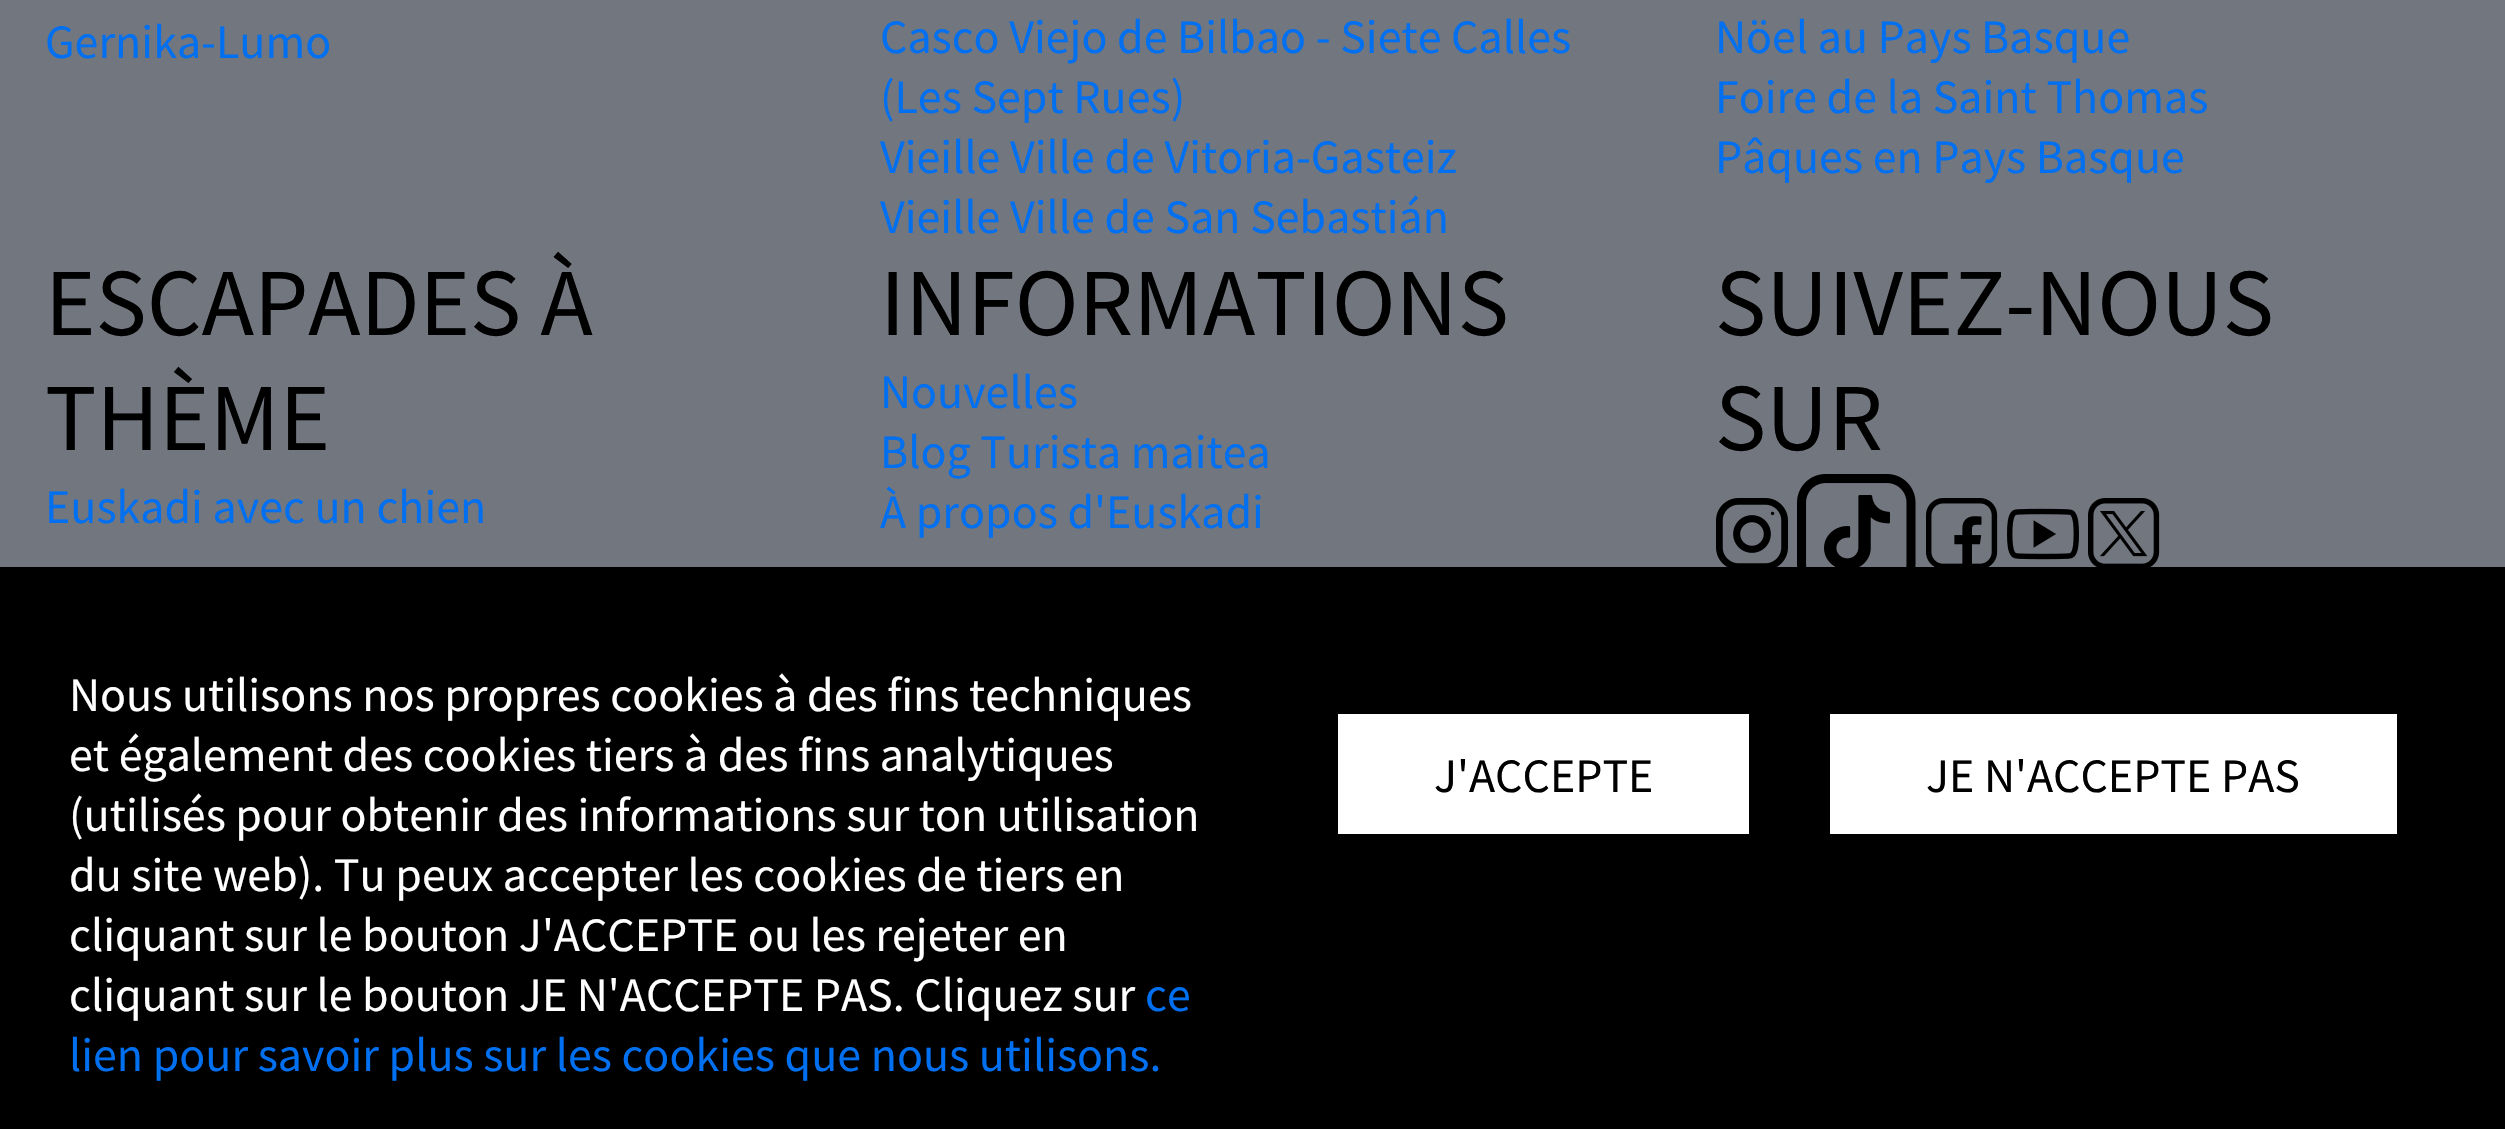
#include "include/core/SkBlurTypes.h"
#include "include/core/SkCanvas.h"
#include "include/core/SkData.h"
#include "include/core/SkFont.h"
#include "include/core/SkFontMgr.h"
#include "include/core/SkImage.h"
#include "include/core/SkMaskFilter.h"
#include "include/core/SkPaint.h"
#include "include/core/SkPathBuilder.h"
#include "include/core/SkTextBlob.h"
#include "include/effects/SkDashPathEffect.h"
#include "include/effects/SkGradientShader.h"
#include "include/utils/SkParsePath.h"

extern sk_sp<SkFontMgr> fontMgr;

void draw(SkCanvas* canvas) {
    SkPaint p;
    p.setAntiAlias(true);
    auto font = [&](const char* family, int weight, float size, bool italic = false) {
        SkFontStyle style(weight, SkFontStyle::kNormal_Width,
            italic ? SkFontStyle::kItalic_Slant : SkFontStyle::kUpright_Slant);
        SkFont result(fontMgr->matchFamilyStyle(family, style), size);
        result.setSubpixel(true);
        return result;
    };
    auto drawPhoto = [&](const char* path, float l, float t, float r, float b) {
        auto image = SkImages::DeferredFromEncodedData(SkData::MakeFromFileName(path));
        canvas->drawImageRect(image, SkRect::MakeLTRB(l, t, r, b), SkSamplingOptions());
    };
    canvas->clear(0xFF72767E);
    auto font1 = font("Source Sans Pro", 400, 48);
    p.setColor(0xFF006FF0);
    {
        const struct { const char* s; float x, y; } items[] = {
            {"Gernika-Lumo", 45, 58},
            {"Casco Viejo de Bilbao - Siete Calles", 880, 53},
            {"(Les Sept Rues)", 880, 113},
            {"Vieille Ville de Vitoria-Gasteiz", 880, 173},
            {"Vieille Ville de San Sebastián", 880, 233},
            {"Nöel au Pays Basque", 1715, 53},
            {"Foire de la Saint Thomas", 1715, 113},
            {"Pâques en Pays Basque", 1715, 173},
        };
        for (auto [s, x, y] : items) {
            canvas->drawString(s, x, y, font1, p);
        }
    }
    auto font2 = font("Source Sans Pro", 400, 96);
    p.setColor(0xFF000000);
    canvas->drawString("ESCAPADES À", 45, 335, font2, p);
    canvas->drawString("THÈME", 45, 450, font2, p);
    p.setColor(0xFF006FF0);
    canvas->drawString("Euskadi avec un chien", 45, 523, font1, p);
    p.setColor(0xFF000000);
    canvas->drawString("INFORMATIONS", 880, 335, font2, p);
    p.setColor(0xFF006FF0);
    {
        const struct { const char* s; float x, y; } items[] = {
            {"Nouvelles", 880, 408},
            {"Blog Turista maitea", 880, 468},
            {"À propos d'Euskadi", 880, 528},
        };
        for (auto [s, x, y] : items) {
            canvas->drawString(s, x, y, font1, p);
        }
    }
    p.setColor(0xFF000000);
    canvas->drawString("SUIVEZ-NOUS", 1715, 335, font2, p);
    canvas->drawString("SUR", 1715, 450, font2, p);
    drawPhoto("media/1.png", 1716, 498, 1788, 567);
    drawPhoto("media/2.png", 1797, 474, 1916, 567);
    drawPhoto("media/3.png", 1926, 498, 1998, 567);
    drawPhoto("media/4.png", 2007, 508, 2079, 560);
    drawPhoto("media/5.png", 2088, 498, 2160, 567);
    canvas->drawRect(SkRect::MakeLTRB(0, 567, 2505, 1129), p);
    p.setColor(0xFFFFFFFF);
    {
        const struct { const char* s; float x, y; } items[] = {
            {"Nous utilisons nos propres cookies à des fins techniques", 69, 711},
            {"et également des cookies tiers à des fins analytiques", 69, 771},
            {"(utilisés pour obtenir des informations sur ton utilisation", 69, 831},
            {"du site web). Tu peux accepter les cookies de tiers en", 69, 891},
            {"cliquant sur le bouton J'ACCEPTE ou les rejeter en", 69, 951},
            {"cliquant sur le bouton JE N'ACCEPTE PAS. Cliquez sur", 69, 1011},
        };
        for (auto [s, x, y] : items) {
            canvas->drawString(s, x, y, font1, p);
        }
    }
    p.setColor(0xFF006FF0);
    canvas->drawString("ce", 1145, 1011, font1, p);
    canvas->drawString("lien pour savoir plus sur les cookies que nous utilisons.", 69, 1071, font1, p);
    p.setColor(0xFFFFFFFF);
    canvas->drawRect(SkRect::MakeLTRB(1338, 714, 1749, 834), p);
    p.setColor(0xFF000000);
    canvas->drawString("J'ACCEPTE", 1434, 792, font1, p);
    p.setColor(0xFFFFFFFF);
    canvas->drawRect(SkRect::MakeLTRB(1830, 714, 2397, 834), p);
    p.setColor(0xFF000000);
    canvas->drawString("JE N'ACCEPTE PAS", 1926, 792, font1, p);
}
